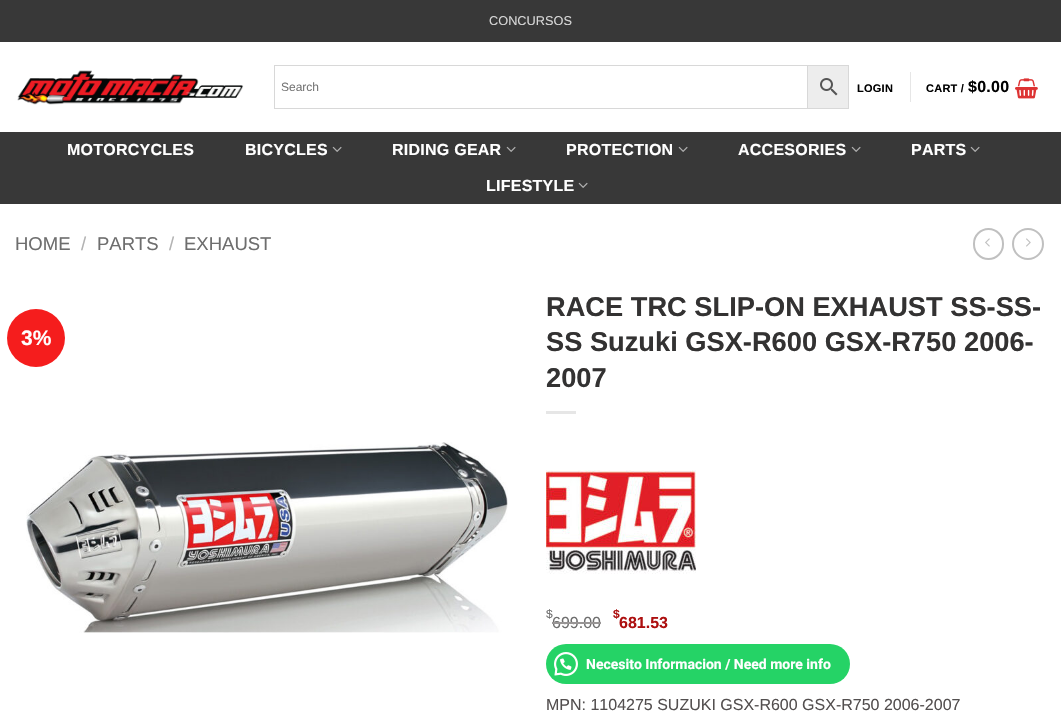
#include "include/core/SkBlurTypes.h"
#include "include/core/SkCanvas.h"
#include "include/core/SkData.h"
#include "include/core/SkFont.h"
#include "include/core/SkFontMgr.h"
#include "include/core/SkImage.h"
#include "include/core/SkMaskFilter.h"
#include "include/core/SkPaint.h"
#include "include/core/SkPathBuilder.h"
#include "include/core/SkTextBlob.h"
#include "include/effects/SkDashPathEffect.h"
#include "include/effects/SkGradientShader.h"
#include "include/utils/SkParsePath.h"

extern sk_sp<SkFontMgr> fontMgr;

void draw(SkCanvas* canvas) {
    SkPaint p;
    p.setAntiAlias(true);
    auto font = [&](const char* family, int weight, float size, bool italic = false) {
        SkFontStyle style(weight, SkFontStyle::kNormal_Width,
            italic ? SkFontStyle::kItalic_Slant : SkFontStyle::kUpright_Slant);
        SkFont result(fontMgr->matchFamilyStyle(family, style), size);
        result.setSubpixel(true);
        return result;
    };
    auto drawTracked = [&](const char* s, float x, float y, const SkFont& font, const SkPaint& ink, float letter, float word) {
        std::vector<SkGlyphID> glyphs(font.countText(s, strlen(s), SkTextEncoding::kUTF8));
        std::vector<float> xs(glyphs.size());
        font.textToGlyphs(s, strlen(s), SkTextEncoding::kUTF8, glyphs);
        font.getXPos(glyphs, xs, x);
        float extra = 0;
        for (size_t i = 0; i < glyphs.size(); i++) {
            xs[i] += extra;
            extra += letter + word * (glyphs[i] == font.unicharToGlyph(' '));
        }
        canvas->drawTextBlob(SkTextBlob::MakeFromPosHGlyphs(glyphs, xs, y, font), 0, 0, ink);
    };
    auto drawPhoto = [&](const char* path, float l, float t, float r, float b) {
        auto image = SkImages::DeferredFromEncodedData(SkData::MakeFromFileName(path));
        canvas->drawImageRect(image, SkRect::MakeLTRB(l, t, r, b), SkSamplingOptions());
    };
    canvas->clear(0xFFFFFFFF);
    p.setColor(0xFF383838);
    canvas->drawRect(SkRect::MakeLTRB(0, 0, 1061, 42), p);
    auto font1 = font("Liberation Sans", 400, 12.75f);
    p.setColor(0xFFD7D7D7);
    canvas->drawString("CONCURSOS", 489, 25, font1, p);
    drawPhoto("media/1.png", 17, 70, 244, 105);
    p.setColor(0xFFEDEDED);
    canvas->drawRect(SkRect::MakeLTRB(807.5f, 65.5f, 848.5f, 108.5f), p);
    p.setStyle(SkPaint::kStroke_Style);
    p.setStrokeWidth(1);
    p.setColor(0xFFD8D8D8);
    canvas->drawRect(SkRect::MakeLTRB(807.5f, 65.5f, 848.5f, 108.5f), p);
    canvas->drawRect(SkRect::MakeLTRB(274.5f, 65.5f, 807.5f, 108.5f), p);
    auto font2 = font("Liberation Sans", 400, 12);
    p.setStyle(SkPaint::kFill_Style);
    p.setColor(0xFF757575);
    canvas->drawString("Search", 281, 91, font2, p);
    drawPhoto("media/2.png", 820, 78, 838, 96);
    auto font3 = font("Liberation Sans", 700, 11);
    p.setColor(0xFF000000);
    drawTracked("LOGIN", 857, 92, font3, p, 0.25f, 0);
    p.setColor(0xFFE6E6E6);
    canvas->drawRect(SkRect::MakeLTRB(910, 72, 911, 102), p);
    p.setColor(0xFF000000);
    drawTracked("CART /", 926, 92, font3, p, 0.25f, 0);
    auto font4 = font("Liberation Sans", 700, 16);
    drawTracked("$0.00", 968, 92, font4, p, 0.25f, 0);
    drawPhoto("media/3.png", 1015, 78, 1038, 99);
    p.setColor(0xFF383838);
    canvas->drawRect(SkRect::MakeLTRB(0, 132, 1061, 204), p);
    p.setColor(0xFF3B3A3A);
    canvas->drawRect(SkRect::MakeLTRB(15, 132, 1046, 133), p);
    p.setColor(0xFFFFFFFF);
    drawTracked("MOTORCYCLES", 67, 155, font4, p, 0.25f, 0);
    drawTracked("BICYCLES", 245, 155, font4, p, 0.25f, 0);
    drawPhoto("media/4.png", 332, 146, 342, 152);
    drawTracked("RIDING GEAR", 392, 155, font4, p, 0.25f, 0);
    drawPhoto("media/4.png", 506, 146, 516, 152);
    drawTracked("PROTECTION", 566, 155, font4, p, 0.25f, 0);
    drawPhoto("media/4.png", 678, 146, 688, 152);
    drawTracked("ACCESORIES", 738, 155, font4, p, 0.25f, 0);
    drawPhoto("media/4.png", 851, 146, 861, 152);
    drawTracked("PARTS", 911, 155, font4, p, 0.25f, 0);
    drawPhoto("media/4.png", 970, 146, 980, 152);
    drawTracked("LIFESTYLE", 486, 191, font4, p, 0.25f, 0);
    drawPhoto("media/4.png", 578, 182, 588, 188);
    auto font5 = font("Liberation Sans", 400, 18.5f);
    p.setColor(0xFF6E6E6E);
    canvas->drawString("HOME", 15, 250, font5, p);
    p.setColor(0xFFB2B2B2);
    canvas->drawString("/", 81, 250, font5, p);
    p.setColor(0xFF6E6E6E);
    canvas->drawString("PARTS", 97, 250, font5, p);
    p.setColor(0xFFB2B2B2);
    canvas->drawString("/", 169, 250, font5, p);
    p.setColor(0xFF6E6E6E);
    canvas->drawString("EXHAUST", 184, 250, font5, p);
    p.setStyle(SkPaint::kStroke_Style);
    p.setStrokeWidth(2);
    p.setColor(0xFFC0C0C0);
    canvas->drawRoundRect(SkRect::MakeLTRB(974, 229, 1003, 259), 14.5f, 14.5f, p);
    drawPhoto("media/5.png", 985, 238, 990, 247);
    canvas->drawCircle(1028, 244, 15, p);
    drawPhoto("media/6.png", 1026, 238, 1031, 247);
    p.setStyle(SkPaint::kFill_Style);
    p.setColor(0xFFF51D1D);
    canvas->drawCircle(36, 338, 29, p);
    auto font6 = font("Liberation Sans", 700, 21);
    p.setColor(0xFFFFFFFF);
    canvas->drawString("3%", 21, 345, font6, p);
    drawPhoto("media/7.png", 26, 442, 508, 633);
    auto font7 = font("Liberation Sans", 700, 27.25f);
    p.setColor(0xFF333232);
    {
        const struct { const char* s; float x, y; } items[] = {
            {"RACE TRC SLIP-ON EXHAUST SS-SS-", 546, 316},
            {"SS Suzuki GSX-R600 GSX-R750 2006-", 546, 351},
            {"2007", 546, 387},
        };
        for (auto [s, x, y] : items) {
            canvas->drawString(s, x, y, font7, p);
        }
    }
    p.setColor(0xFFE6E6E6);
    canvas->drawRect(SkRect::MakeLTRB(546, 411, 576, 414), p);
    drawPhoto("media/8.png", 546, 470, 696, 574);
    p.setColor(0xFF6E6E6E);
    canvas->drawString("$", 546, 618, font2, p);
    auto font8 = font("Liberation Sans", 400, 16);
    canvas->drawString("699.00", 552, 628, font8, p);
    p.setColor(0xFF989595);
    canvas->drawRect(SkRect::MakeLTRB(552, 622, 601, 624), p);
    auto font9 = font("Liberation Sans", 700, 12);
    p.setColor(0xFFAD0F0F);
    canvas->drawString("$", 613, 618, font9, p);
    canvas->drawString("681.53", 619, 628, font4, p);
    p.setColor(0xFF25D366);
    canvas->drawRoundRect(SkRect::MakeLTRB(546, 644, 850, 684), 20, 20, p);
    drawPhoto("media/9.png", 554, 652, 578, 676);
    auto font10 = font("Roboto", 700, 14);
    p.setColor(0xFFFFFFFF);
    canvas->drawString("Necesito Informacion / Need more info", 586, 669, font10, p);
    p.setColor(0xFF534F4F);
    canvas->drawString("MPN: 1104275 SUZUKI GSX-R600 GSX-R750 2006-2007", 546, 710, font8, p);
}
